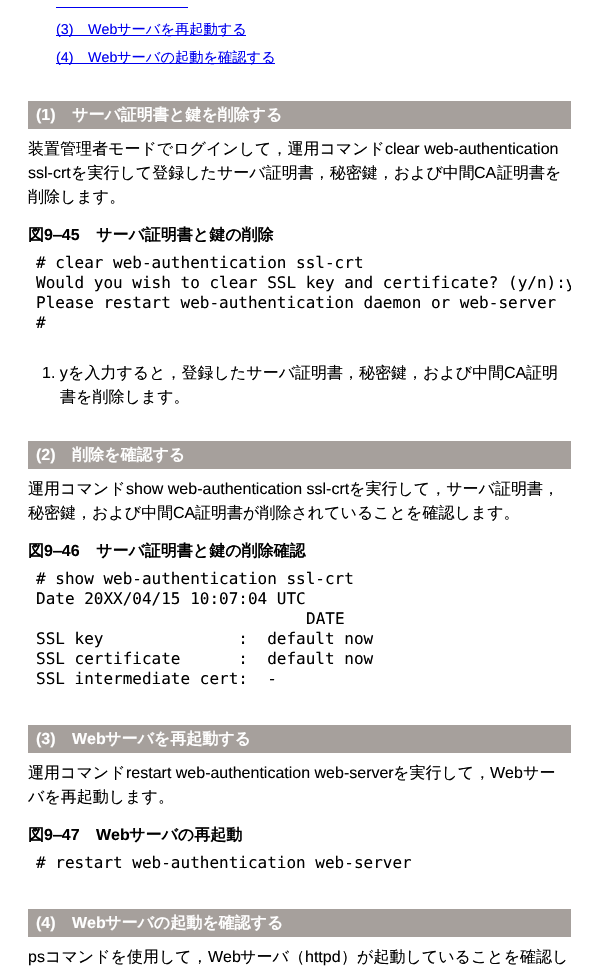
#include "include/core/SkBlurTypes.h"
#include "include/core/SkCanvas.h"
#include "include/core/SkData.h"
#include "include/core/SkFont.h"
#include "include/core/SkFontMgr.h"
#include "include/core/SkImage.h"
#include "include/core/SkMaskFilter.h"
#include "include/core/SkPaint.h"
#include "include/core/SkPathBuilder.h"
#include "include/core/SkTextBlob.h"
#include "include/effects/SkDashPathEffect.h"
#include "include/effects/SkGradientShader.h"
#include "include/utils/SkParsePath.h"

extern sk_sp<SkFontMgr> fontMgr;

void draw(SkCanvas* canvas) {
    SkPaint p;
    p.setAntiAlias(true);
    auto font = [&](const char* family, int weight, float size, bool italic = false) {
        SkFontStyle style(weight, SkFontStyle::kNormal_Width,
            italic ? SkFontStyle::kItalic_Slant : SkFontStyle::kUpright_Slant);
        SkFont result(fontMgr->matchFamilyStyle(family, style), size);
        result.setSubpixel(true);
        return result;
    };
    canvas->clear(0xFFFFFFFF);
    p.setColor(0xFF0000EE);
    canvas->drawRect(SkRect::MakeLTRB(56, 7, 188, 8), p);
    canvas->drawRect(SkRect::MakeLTRB(56, 35, 246, 36), p);
    auto font1 = font("Liberation Sans", 400, 14.25f);
    canvas->drawString("(3)", 56, 34, font1, p);
    canvas->drawString("Web", 88, 34, font1, p);
    auto font2 = font("WenQuanYi Zen Hei", 500, 14.25f);
    canvas->drawString("サーバを再起動する", 117, 34, font2, p);
    canvas->drawRect(SkRect::MakeLTRB(56, 63, 275, 64), p);
    canvas->drawString("(4)", 56, 62, font1, p);
    canvas->drawString("Web", 88, 62, font1, p);
    canvas->drawString("サーバの起動を確認する", 117, 62, font2, p);
    p.setColor(0xFFA6A09C);
    canvas->drawRect(SkRect::MakeLTRB(28, 101, 571, 129), p);
    auto font3 = font("Liberation Sans", 700, 16);
    p.setColor(0xFFFFFFFF);
    canvas->drawString("(1)", 36, 120, font3, p);
    auto font4 = font("WenQuanYi Zen Hei", 700, 16);
    canvas->drawString("サーバ証明書と鍵を削除する", 72, 120, font4, p);
    auto font5 = font("WenQuanYi Zen Hei", 500, 16);
    p.setColor(0xFF000000);
    canvas->drawString("装置管理者モードでログインして，運用コマンド", 28, 154, font5, p);
    auto font6 = font("Liberation Sans", 400, 16);
    canvas->drawString("clear web-authentication", 385, 154, font6, p);
    canvas->drawString("ssl-crt", 28, 178, font6, p);
    canvas->drawString("を実行して登録したサーバ証明書，秘密鍵，および中間", 71, 178, font5, p);
    canvas->drawString("CA", 474, 178, font6, p);
    canvas->drawString("証明書を", 497, 178, font5, p);
    canvas->drawString("削除します。", 28, 202, font5, p);
    canvas->drawString("図", 28, 240, font4, p);
    canvas->drawString("9‒45", 44, 240, font3, p);
    canvas->drawString("サーバ証明書と鍵の削除", 96, 240, font4, p);
    auto font7 = font("DejaVu Sans Mono", 400, 16);
    canvas->drawString("# clear web-authentication ssl-crt", 36, 268, font7, p);
    canvas->save();
    canvas->clipRect(SkRect::MakeLTRB(28, 249, 571, 337));
    canvas->drawString("Would you wish to clear SSL key and certificate? (y/n):y", 36, 288, font7, p);
    canvas->restore();
    canvas->drawString("Please restart web-authentication daemon or web-server", 36, 308, font7, p);
    canvas->drawString("#", 36, 328, font7, p);
    canvas->drawString("1. y", 42, 378, font6, p);
    canvas->drawString("を入力すると，登録したサーバ証明書，秘密鍵，および中間", 68, 378, font5, p);
    canvas->drawString("CA", 504, 378, font6, p);
    canvas->drawString("証明", 526, 378, font5, p);
    canvas->drawString("書を削除します。", 60, 402, font5, p);
    p.setColor(0xFFA6A09C);
    canvas->drawRect(SkRect::MakeLTRB(28, 441, 571, 469), p);
    p.setColor(0xFFFFFFFF);
    canvas->drawString("(2)", 36, 460, font3, p);
    canvas->drawString("削除を確認する", 72, 460, font4, p);
    p.setColor(0xFF000000);
    canvas->drawString("運用コマンド", 28, 494, font5, p);
    canvas->drawString("show web-authentication ssl-crt", 126, 494, font6, p);
    canvas->drawString("を実行して，サーバ証明書，", 349, 494, font5, p);
    canvas->drawString("秘密鍵，および中間", 28, 518, font5, p);
    canvas->drawString("CA", 173, 518, font6, p);
    canvas->drawString("証明書が削除されていることを確認します。", 195, 518, font5, p);
    canvas->drawString("図", 28, 556, font4, p);
    canvas->drawString("9‒46", 44, 556, font3, p);
    canvas->drawString("サーバ証明書と鍵の削除確認", 96, 556, font4, p);
    {
        const struct { const char* s; float x, y; } items[] = {
            {"# show web-authentication ssl-crt", 36, 584},
            {"Date 20XX/04/15 10:07:04 UTC", 36, 604},
            {"DATE", 306, 624},
            {"SSL key              :  default now", 36, 644},
            {"SSL certificate      :  default now", 36, 664},
            {"SSL intermediate cert:  -", 36, 684},
        };
        for (auto [s, x, y] : items) {
            canvas->drawString(s, x, y, font7, p);
        }
    }
    p.setColor(0xFFA6A09C);
    canvas->drawRect(SkRect::MakeLTRB(28, 725, 571, 753), p);
    p.setColor(0xFFFFFFFF);
    canvas->drawString("(3)", 36, 744, font3, p);
    canvas->drawString("Web", 72, 744, font3, p);
    canvas->drawString("サーバを再起動する", 105, 744, font4, p);
    p.setColor(0xFF000000);
    canvas->drawString("運用コマンド", 28, 778, font5, p);
    canvas->drawString("restart web-authentication web-server", 126, 778, font6, p);
    canvas->drawString("を実行して，", 393, 778, font5, p);
    canvas->drawString("Web", 490, 778, font6, p);
    canvas->drawString("サー", 523, 778, font5, p);
    canvas->drawString("バを再起動します。", 28, 802, font5, p);
    canvas->drawString("図", 28, 840, font4, p);
    canvas->drawString("9‒47", 44, 840, font3, p);
    canvas->drawString("Web", 96, 840, font3, p);
    canvas->drawString("サーバの再起動", 129, 840, font4, p);
    canvas->drawString("# restart web-authentication web-server", 36, 868, font7, p);
    p.setColor(0xFFA6A09C);
    canvas->drawRect(SkRect::MakeLTRB(28, 909, 571, 937), p);
    p.setColor(0xFFFFFFFF);
    canvas->drawString("(4)", 36, 928, font3, p);
    canvas->drawString("Web", 72, 928, font3, p);
    canvas->drawString("サーバの起動を確認する", 105, 928, font4, p);
    p.setColor(0xFF000000);
    canvas->drawString("ps", 28, 962, font6, p);
    canvas->drawString("コマンドを使用して，", 45, 962, font5, p);
    canvas->drawString("Web", 208, 962, font6, p);
    canvas->drawString("サーバ（", 240, 962, font5, p);
    canvas->drawString("httpd", 305, 962, font6, p);
    canvas->drawString("）が起動していることを確認し", 341, 962, font5, p);
}
